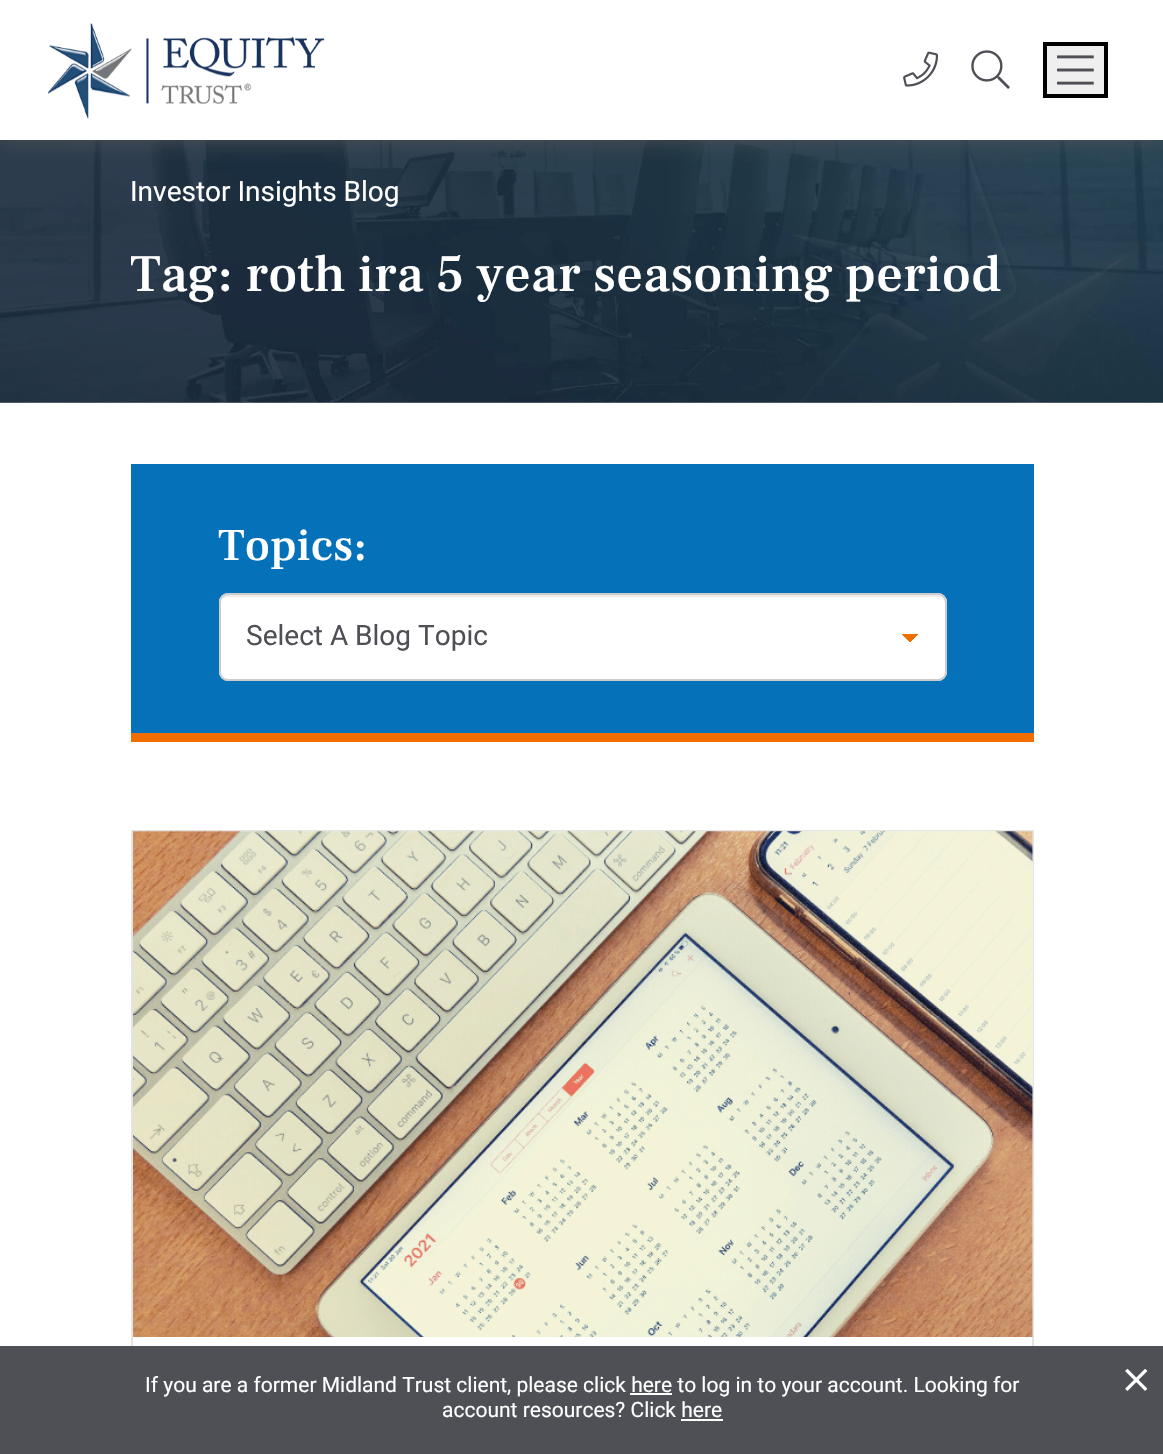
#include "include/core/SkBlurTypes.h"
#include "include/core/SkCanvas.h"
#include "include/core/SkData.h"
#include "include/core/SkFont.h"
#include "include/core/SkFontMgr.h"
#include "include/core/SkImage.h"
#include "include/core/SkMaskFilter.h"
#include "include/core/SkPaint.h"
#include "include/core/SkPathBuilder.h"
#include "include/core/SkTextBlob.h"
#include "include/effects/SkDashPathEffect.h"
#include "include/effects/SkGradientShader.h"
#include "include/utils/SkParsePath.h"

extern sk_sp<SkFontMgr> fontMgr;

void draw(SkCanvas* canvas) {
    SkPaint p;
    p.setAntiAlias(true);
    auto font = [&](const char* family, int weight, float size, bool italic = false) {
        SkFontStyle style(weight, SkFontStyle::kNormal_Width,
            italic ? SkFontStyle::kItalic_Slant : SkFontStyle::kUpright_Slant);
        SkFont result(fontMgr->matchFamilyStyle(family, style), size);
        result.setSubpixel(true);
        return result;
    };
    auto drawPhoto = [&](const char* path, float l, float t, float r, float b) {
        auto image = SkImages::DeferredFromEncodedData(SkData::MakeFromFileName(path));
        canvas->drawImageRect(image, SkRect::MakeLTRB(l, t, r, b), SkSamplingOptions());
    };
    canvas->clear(0xFFFFFFFF);
    p.setColor(0xFF818283);
    canvas->drawRect(SkRect::MakeLTRB(0, 402, 1163, 403), p);
    drawPhoto("media/5.png", 0, 140, 1163, 403);
    canvas->save();
    canvas->clipRect(SkRect::MakeLTRB(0, 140, 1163, 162));
    p.setColor(0xFF4E5056);
    p.setMaskFilter(SkMaskFilter::MakeBlur(kNormal_SkBlurStyle, 10.5f));
    canvas->drawRect(SkRect::MakeLTRB(0, 0, 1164, 140), p);
    p.setMaskFilter(nullptr);
    canvas->restore();
    drawPhoto("media/1.png", 47, 23, 325, 119);
    drawPhoto("media/2.png", 903, 51, 939, 87);
    drawPhoto("media/3.png", 971, 50, 1010, 89);
    p.setColor(0xFFEFEFEF);
    canvas->drawRect(SkRect::MakeLTRB(1045, 44, 1106, 96), p);
    p.setStyle(SkPaint::kStroke_Style);
    p.setStrokeWidth(4);
    p.setColor(0xFF000000);
    canvas->drawRect(SkRect::MakeLTRB(1045, 44, 1106, 96), p);
    drawPhoto("media/4.png", 1057, 55, 1094, 85);
    auto font1 = font("Roboto", 400, 28);
    p.setStyle(SkPaint::kFill_Style);
    p.setColor(0xFFFFFFFF);
    canvas->drawString("Investor Insights Blog", 130, 201, font1, p);
    auto font2 = font("Frank Ruhl Libre", 500, 52.5f);
    canvas->drawString("Tag: roth ira 5 year seasoning period", 130, 291, font2, p);
    p.setColor(0xFF0471B9);
    canvas->drawRect(SkRect::MakeLTRB(131, 464, 1034, 733), p);
    p.setColor(0xFFF26D00);
    canvas->drawRect(SkRect::MakeLTRB(131, 733, 1034, 742), p);
    auto font3 = font("Frank Ruhl Libre", 500, 45.5f);
    p.setColor(0xFFFFFFFF);
    canvas->drawString("Topics:", 218, 560, font3, p);
    canvas->drawRoundRect(SkRect::MakeLTRB(219, 593, 947, 681), 9, 9, p);
    {
        const SkColor colors[] = {0xFFF26D00, 0xFFFFFFFF};
        const float stops[] = {0.5f, 0.5f};
        const SkPoint ends[] = {{910, 634}, {919, 642}};
        p.setShader(SkGradientShader::MakeLinear(ends, colors, stops, 2, SkTileMode::kClamp));
        p.setAlpha(255);
    }
    canvas->drawRect(SkRect::MakeLTRB(910, 634, 919, 642), p);
    {
        const SkColor colors[] = {0xFFFFFFFF, 0xFFF26D00};
        const float stops[] = {0.5f, 0.5f};
        const SkPoint ends[] = {{901, 642}, {910, 634}};
        p.setShader(SkGradientShader::MakeLinear(ends, colors, stops, 2, SkTileMode::kClamp));
        p.setAlpha(255);
    }
    canvas->drawRect(SkRect::MakeLTRB(901, 634, 910, 642), p);
    p.setShader(nullptr);
    p.setColor(0xFFECECEC);
    canvas->drawPath(SkPathBuilder().moveTo(228, 597).lineTo(938, 597).cubicTo(942, 597, 945, 600, 945, 604).lineTo(945, 602).cubicTo(945, 598, 942, 595, 938, 595).lineTo(228, 595).cubicTo(225, 595, 222, 597, 221, 600).cubicTo(223, 598, 225, 597, 228, 597).close().detach(), p);
    p.setStyle(SkPaint::kStroke_Style);
    p.setStrokeWidth(2);
    p.setColor(0xFFCCCCCC);
    canvas->drawRoundRect(SkRect::MakeLTRB(220, 594, 946, 680), 8, 8, p);
    p.setStyle(SkPaint::kFill_Style);
    p.setColor(0xFF4E5056);
    canvas->drawString("Select A Blog Topic", 246, 645, font1, p);
    p.setStyle(SkPaint::kStroke_Style);
    p.setColor(0xFFE4E4E4);
    canvas->drawRect(SkRect::MakeLTRB(132, 831, 1033, 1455), p);
    p.setStyle(SkPaint::kFill_Style);
    p.setColor(0xFFEFF0F0);
    canvas->drawRect(SkRect::MakeLTRB(133, 831, 1033, 1311), p);
    drawPhoto("media/6.png", 133, 831, 1033, 1337);
    p.setColor(0xFF4E5056);
    canvas->drawRect(SkRect::MakeLTRB(0, 1346, 1163, 1454), p);
    auto font4 = font("Roboto", 400, 21);
    p.setColor(0xFFFFFFFF);
    canvas->drawString("If you are a former Midland Trust client, please click here to log in to your account. Looking for", 145, 1392, font4, p);
    canvas->drawRect(SkRect::MakeLTRB(630, 1393, 672, 1395), p);
    canvas->drawString("account resources? Click here", 442, 1417, font4, p);
    canvas->drawRect(SkRect::MakeLTRB(681, 1419, 723, 1421), p);
    drawPhoto("media/7.png", 1125, 1369, 1148, 1391);
}
